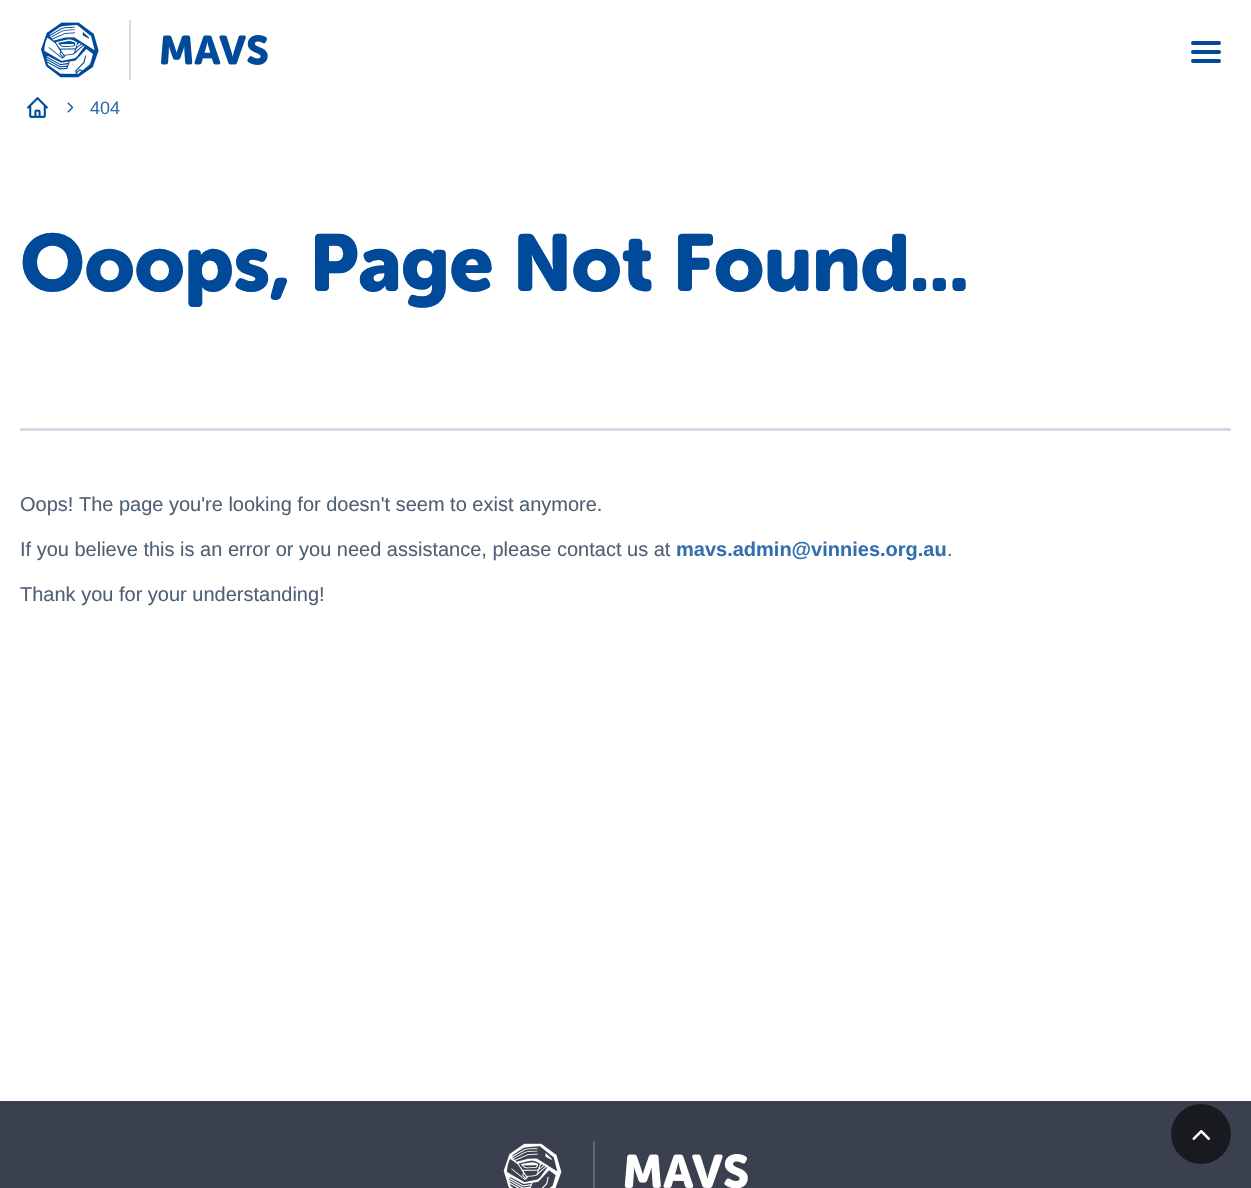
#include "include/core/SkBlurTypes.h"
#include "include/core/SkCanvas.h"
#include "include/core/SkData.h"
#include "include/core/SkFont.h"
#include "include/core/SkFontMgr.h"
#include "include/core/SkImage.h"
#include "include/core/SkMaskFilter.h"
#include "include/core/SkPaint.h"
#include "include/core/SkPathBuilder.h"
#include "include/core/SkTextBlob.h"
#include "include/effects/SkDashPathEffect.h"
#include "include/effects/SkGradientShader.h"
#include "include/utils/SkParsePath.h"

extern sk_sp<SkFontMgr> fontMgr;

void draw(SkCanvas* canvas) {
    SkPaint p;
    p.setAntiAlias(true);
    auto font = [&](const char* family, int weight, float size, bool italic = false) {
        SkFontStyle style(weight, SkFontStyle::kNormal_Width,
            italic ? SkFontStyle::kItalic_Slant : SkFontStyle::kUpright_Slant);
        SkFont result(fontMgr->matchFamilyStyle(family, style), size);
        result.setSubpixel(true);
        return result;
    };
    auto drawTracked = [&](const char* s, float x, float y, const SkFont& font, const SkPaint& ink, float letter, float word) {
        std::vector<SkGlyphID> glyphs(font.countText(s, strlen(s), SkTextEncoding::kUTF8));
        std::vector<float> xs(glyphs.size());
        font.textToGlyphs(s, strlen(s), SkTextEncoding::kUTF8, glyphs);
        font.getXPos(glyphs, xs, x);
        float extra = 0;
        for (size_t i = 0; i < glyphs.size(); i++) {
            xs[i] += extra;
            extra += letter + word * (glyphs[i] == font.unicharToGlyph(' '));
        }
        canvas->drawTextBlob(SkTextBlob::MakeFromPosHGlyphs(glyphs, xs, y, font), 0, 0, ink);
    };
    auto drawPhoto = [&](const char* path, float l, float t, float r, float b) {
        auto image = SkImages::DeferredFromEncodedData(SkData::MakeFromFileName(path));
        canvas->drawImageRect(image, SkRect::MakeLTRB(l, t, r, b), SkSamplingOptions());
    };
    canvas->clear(0xFFFFFFFF);
    drawPhoto("media/1.png", 41, 22, 99, 78);
    p.setColor(0xFFD4DAE3);
    canvas->drawRect(SkRect::MakeLTRB(129, 20, 131, 80), p);
    drawPhoto("media/2.png", 161, 35, 268, 65);
    p.setColor(0xFF004A99);
    canvas->drawRoundRect(SkRect::MakeLTRB(1191, 41, 1221, 45), 2, 2, p);
    canvas->drawRoundRect(SkRect::MakeLTRB(1191, 50, 1221, 54), 2, 2, p);
    canvas->drawRoundRect(SkRect::MakeLTRB(1191, 59, 1221, 63), 2, 2, p);
    drawPhoto("media/3.png", 27, 97, 48, 118);
    drawPhoto("media/4.png", 67, 102, 74, 113);
    auto font1 = font("Liberation Sans", 400, 18);
    p.setColor(0xFF336EAD);
    canvas->drawString("404", 90, 114, font1, p);
    auto font2 = font("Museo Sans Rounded", 700, 80);
    p.setColor(0xFF004A99);
    drawTracked("Ooops, Page Not Found...", 20, 291, font2, p, -0.4f, 0);
    p.setColor(0xFFD4DAE3);
    canvas->drawRect(SkRect::MakeLTRB(20, 428, 1231, 431), p);
    auto font3 = font("Liberation Sans", 400, 20);
    p.setColor(0xFF4E6074);
    canvas->drawString("Oops! The page you're looking for doesn't seem to exist anymore.", 20, 511, font3, p);
    canvas->drawString("If you believe this is an error or you need assistance, please contact us at", 20, 556, font3, p);
    auto font4 = font("Liberation Sans", 700, 20);
    p.setColor(0xFF336EAD);
    canvas->drawString("mavs.admin@vinnies.org.au", 676, 556, font4, p);
    p.setColor(0xFF4E6074);
    canvas->drawString(".", 947, 556, font3, p);
    canvas->drawString("Thank you for your understanding!", 20, 601, font3, p);
    p.setColor(0xFF3B404E);
    canvas->drawRect(SkRect::MakeLTRB(0, 1101, 1251, 1188), p);
    drawPhoto("media/5.png", 503, 1143, 562, 1188);
    p.setColor(0xFF626671);
    canvas->drawRect(SkRect::MakeLTRB(593, 1141, 595, 1188), p);
    drawPhoto("media/6.png", 624, 1154, 748, 1188);
    p.setColor(0xFF181A1F);
    canvas->drawCircle(1201, 1134, 30, p);
    drawPhoto("media/7.png", 1192, 1130, 1210, 1140);
}
